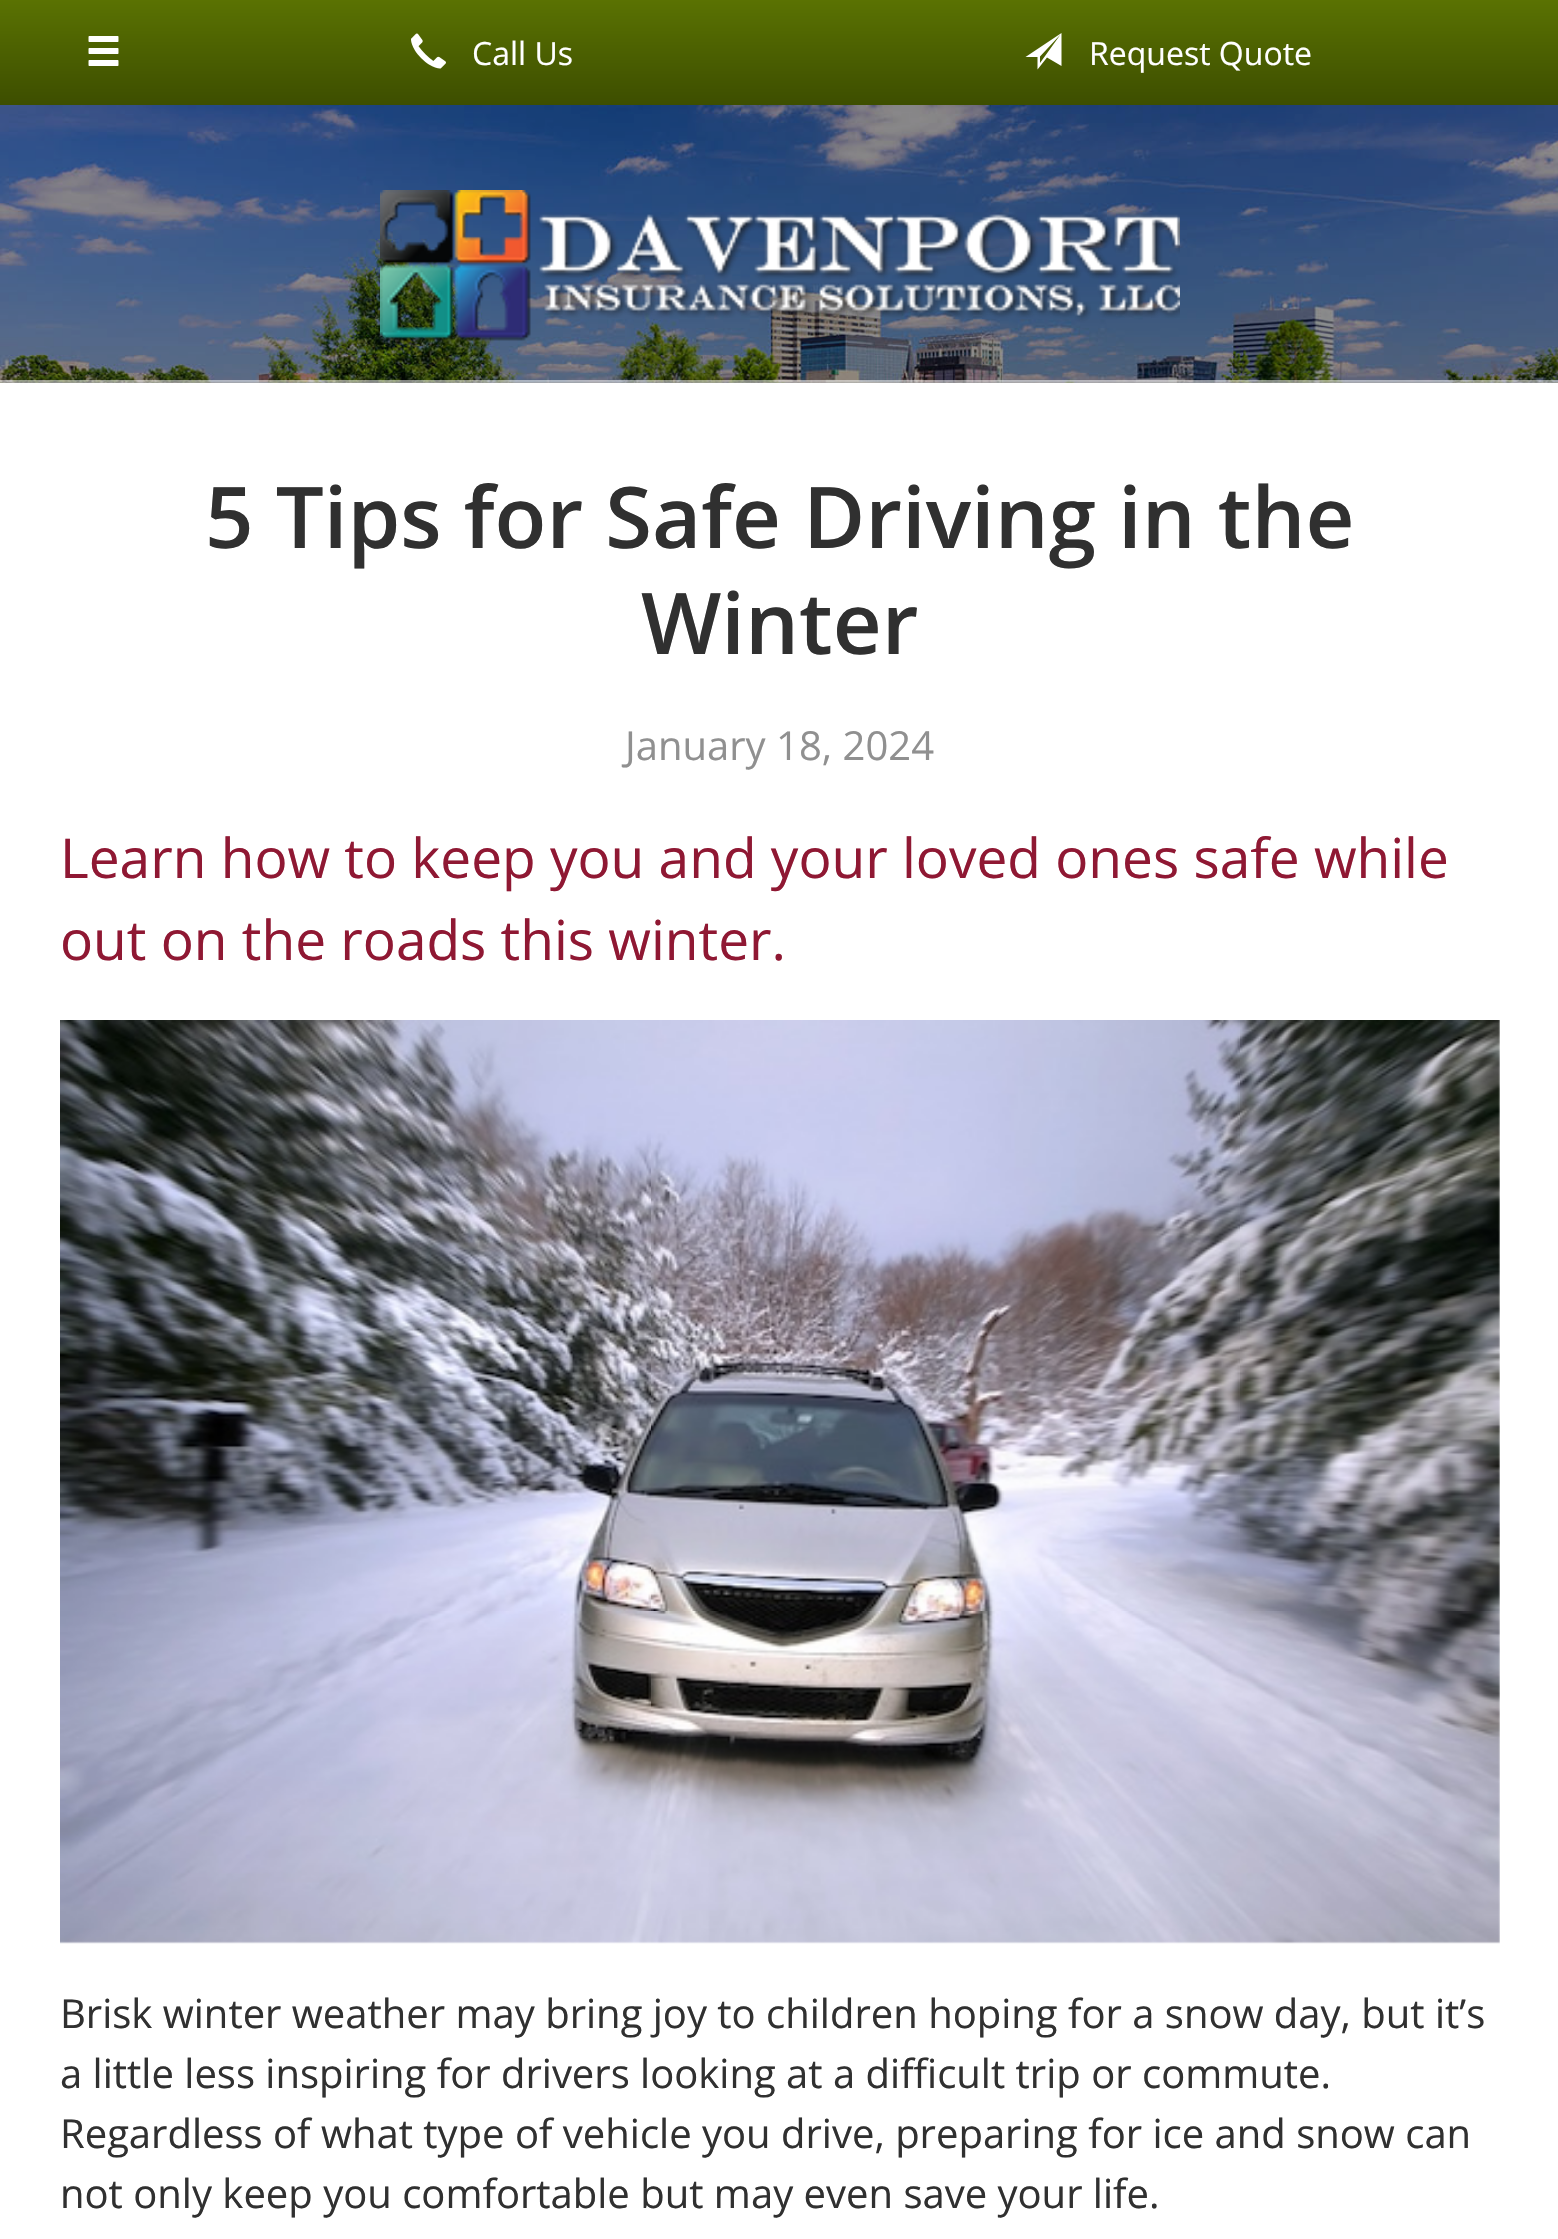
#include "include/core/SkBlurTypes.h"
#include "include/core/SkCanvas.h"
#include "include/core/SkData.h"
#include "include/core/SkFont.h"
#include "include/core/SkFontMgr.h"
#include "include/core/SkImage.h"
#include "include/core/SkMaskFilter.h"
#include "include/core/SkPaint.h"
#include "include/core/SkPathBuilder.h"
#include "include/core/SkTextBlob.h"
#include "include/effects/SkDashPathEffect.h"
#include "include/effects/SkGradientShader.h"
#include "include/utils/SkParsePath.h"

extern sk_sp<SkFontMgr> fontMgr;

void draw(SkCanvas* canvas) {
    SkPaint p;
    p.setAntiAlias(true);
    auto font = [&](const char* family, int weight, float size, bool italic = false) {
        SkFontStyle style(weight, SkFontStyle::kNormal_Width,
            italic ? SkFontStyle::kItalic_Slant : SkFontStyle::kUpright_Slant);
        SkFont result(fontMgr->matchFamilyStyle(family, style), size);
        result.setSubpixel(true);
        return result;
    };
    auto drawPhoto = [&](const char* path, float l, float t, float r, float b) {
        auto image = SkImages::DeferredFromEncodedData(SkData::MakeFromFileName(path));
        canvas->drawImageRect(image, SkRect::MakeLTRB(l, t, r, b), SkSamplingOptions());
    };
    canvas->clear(0xFF404040);
    {
        const SkColor colors[] = {0xFF5A7202, 0xFF3D4E00};
        const float stops[] = {0, 1};
        const SkPoint ends[] = {{780, 0}, {780, 105}};
        p.setShader(SkGradientShader::MakeLinear(ends, colors, stops, 2, SkTileMode::kClamp));
        p.setAlpha(255);
    }
    canvas->drawRect(SkRect::MakeLTRB(0, 0, 1558, 105), p);
    drawPhoto("media/1.png", 88, 36, 119, 66);
    drawPhoto("media/2.png", 411, 33, 446, 69);
    auto font1 = font("Open Sans", 400, 32);
    p.setShader(nullptr);
    p.setColor(0xFFFFFFFF);
    canvas->drawString("Call Us", 472, 65, font1, p);
    canvas->drawPath(SkPathBuilder().moveTo(1025.5f, 57).lineTo(1037.5f, 57).lineTo(1037.5f, 69.5f).lineTo(1047, 57.5f).lineTo(1061.5f, 66).lineTo(1061.5f, 33).close().moveTo(1040, 63).lineTo(1040, 56.5f).lineTo(1060.5f, 34.5f).close().detach(), p);
    canvas->drawString("Request Quote", 1089, 65, font1, p);
    drawPhoto("media/3.png", 0, 105, 1558, 383);
    {
        const struct { float l, t, r, b; SkColor color; } items[] = {
            {0, 105, 1558, 383, 0x4D000000},
            {0, 105, 1558, 383, 0x33000000},
            {0, 380, 1558, 383, 0x80FFFFFF},
        };
        for (auto [l, t, r, b, color] : items) {
            p.setColor(color);
            canvas->drawRect(SkRect::MakeLTRB(l, t, r, b), p);
        }
    }
    drawPhoto("media/4.png", 380, 190, 1180, 341);
    p.setColor(0xFFFFFFFF);
    canvas->drawRect(SkRect::MakeLTRB(0, 383, 1558, 2239), p);
    auto font2 = font("Open Sans", 600, 85);
    p.setColor(0xFF303030);
    canvas->drawString("5 Tips for Safe Driving in the", 205, 548, font2, p);
    canvas->drawString("Winter", 641, 654, font2, p);
    auto font3 = font("Open Sans", 400, 40);
    p.setColor(0xFF909090);
    canvas->drawString("January 18, 2024", 625, 760, font3, p);
    auto font4 = font("Open Sans", 400, 55);
    p.setColor(0xFF8F1833);
    canvas->drawString("Learn how to keep you and your loved ones safe while", 60, 878, font4, p);
    canvas->drawString("out on the roads this winter.", 60, 960, font4, p);
    drawPhoto("media/5.png", 60, 1020, 1500, 1944);
    p.setColor(0xFF303030);
    {
        const struct { const char* s; float x, y; } items[] = {
            {"Brisk winter weather may bring joy to children hoping for a snow day, but it’s", 60, 2028},
            {"a little less inspiring for drivers looking at a difficult trip or commute.", 60, 2088},
            {"Regardless of what type of vehicle you drive, preparing for ice and snow can", 60, 2148},
            {"not only keep you comfortable but may even save your life.", 60, 2208},
        };
        for (auto [s, x, y] : items) {
            canvas->drawString(s, x, y, font3, p);
        }
    }
}
